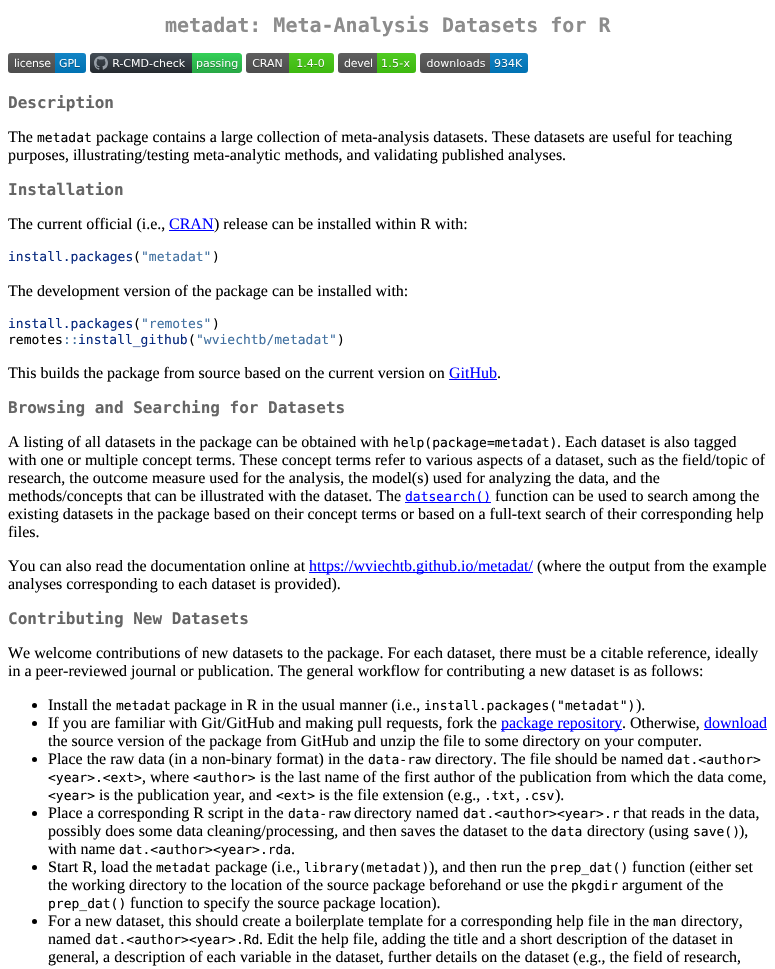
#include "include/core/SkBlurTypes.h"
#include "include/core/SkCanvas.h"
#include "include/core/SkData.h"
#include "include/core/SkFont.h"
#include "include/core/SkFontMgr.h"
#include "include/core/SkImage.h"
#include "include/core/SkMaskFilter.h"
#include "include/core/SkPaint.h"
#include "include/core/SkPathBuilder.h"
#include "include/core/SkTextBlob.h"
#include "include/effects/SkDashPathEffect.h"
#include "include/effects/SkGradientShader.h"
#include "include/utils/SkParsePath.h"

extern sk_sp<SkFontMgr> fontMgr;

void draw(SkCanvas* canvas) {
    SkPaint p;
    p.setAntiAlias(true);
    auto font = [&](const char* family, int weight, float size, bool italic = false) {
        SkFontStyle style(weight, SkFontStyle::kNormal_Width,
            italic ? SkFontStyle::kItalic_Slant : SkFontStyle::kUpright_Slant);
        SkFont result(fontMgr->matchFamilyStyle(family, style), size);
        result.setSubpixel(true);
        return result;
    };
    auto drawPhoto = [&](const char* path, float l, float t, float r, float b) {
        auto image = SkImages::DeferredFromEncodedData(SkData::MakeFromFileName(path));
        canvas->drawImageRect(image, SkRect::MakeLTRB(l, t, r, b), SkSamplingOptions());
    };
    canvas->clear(0xFFFFFFFF);
    auto font1 = font("DejaVu Sans Mono", 700, 20);
    p.setColor(0xFF8C8C8C);
    canvas->drawString("metadat: Meta-Analysis Datasets for R", 165, 32, font1, p);
    drawPhoto("media/1.png", 8, 53, 86, 73);
    drawPhoto("media/2.png", 90, 53, 242, 73);
    drawPhoto("media/3.png", 246, 53, 334, 73);
    drawPhoto("media/4.png", 338, 53, 416, 73);
    drawPhoto("media/5.png", 420, 53, 528, 73);
    auto font2 = font("DejaVu Sans Mono", 700, 16);
    p.setColor(0xFF666666);
    canvas->drawString("Description", 8, 108, font2, p);
    auto font3 = font("Liberation Serif", 400, 16);
    p.setColor(0xFF000000);
    canvas->drawString("The", 8, 142, font3, p);
    auto font4 = font("DejaVu Sans Mono", 400, 13);
    canvas->drawString("metadat", 37, 142, font4, p);
    canvas->drawString("package contains a large collection of meta-analysis datasets. These datasets are useful for teaching", 96, 142, font3, p);
    canvas->drawString("purposes, illustrating/testing meta-analytic methods, and validating published analyses.", 8, 160, font3, p);
    p.setColor(0xFF666666);
    canvas->drawString("Installation", 8, 195, font2, p);
    p.setColor(0xFF000000);
    canvas->drawString("The current official (i.e.,", 8, 229, font3, p);
    p.setColor(0xFF0000FF);
    canvas->drawString("CRAN", 169, 229, font3, p);
    canvas->drawRect(SkRect::MakeLTRB(169, 230, 214, 231), p);
    p.setColor(0xFF000000);
    canvas->drawString(") release can be installed within R with:", 214, 229, font3, p);
    p.setColor(0xFF06287E);
    canvas->drawString("install.packages", 8, 261, font4, p);
    p.setColor(0xFF000000);
    canvas->drawString("(", 133, 261, font4, p);
    p.setColor(0xFF4070A0);
    canvas->drawString("\"metadat\"", 141, 261, font4, p);
    p.setColor(0xFF000000);
    canvas->drawString(")", 212, 261, font4, p);
    canvas->drawString("The development version of the package can be installed with:", 8, 296, font3, p);
    p.setColor(0xFF06287E);
    canvas->drawString("install.packages", 8, 328, font4, p);
    p.setColor(0xFF000000);
    canvas->drawString("(", 133, 328, font4, p);
    p.setColor(0xFF4070A0);
    canvas->drawString("\"remotes\"", 141, 328, font4, p);
    p.setColor(0xFF000000);
    canvas->drawString(")", 212, 328, font4, p);
    canvas->drawString("remotes", 8, 344, font4, p);
    p.setColor(0xFF4070A0);
    canvas->drawString("::", 63, 344, font4, p);
    p.setColor(0xFF06287E);
    canvas->drawString("install_github", 78, 344, font4, p);
    p.setColor(0xFF000000);
    canvas->drawString("(", 188, 344, font4, p);
    p.setColor(0xFF4070A0);
    canvas->drawString("\"wviechtb/metadat\"", 196, 344, font4, p);
    p.setColor(0xFF000000);
    canvas->drawString(")", 337, 344, font4, p);
    canvas->drawString("This builds the package from source based on the current version on", 8, 378, font3, p);
    p.setColor(0xFF0000FF);
    canvas->drawString("GitHub", 449, 378, font3, p);
    canvas->drawRect(SkRect::MakeLTRB(449, 379, 497, 380), p);
    p.setColor(0xFF000000);
    canvas->drawString(".", 497, 378, font3, p);
    p.setColor(0xFF666666);
    canvas->drawString("Browsing and Searching for Datasets", 8, 413, font2, p);
    p.setColor(0xFF000000);
    canvas->drawString("A listing of all datasets in the package can be obtained with", 8, 447, font3, p);
    canvas->drawString("help(package=metadat)", 393, 447, font4, p);
    {
        const struct { const char* s; float x, y; } items[] = {
            {". Each dataset is also tagged", 557, 447},
            {"with one or multiple concept terms. These concept terms refer to various aspects of a dataset, such as the field/topic of", 8, 465},
            {"research, the outcome measure used for the analysis, the model(s) used for analyzing the data, and the", 8, 483},
            {"methods/concepts that can be illustrated with the dataset. The", 8, 501},
        };
        for (auto [s, x, y] : items) {
            canvas->drawString(s, x, y, font3, p);
        }
    }
    p.setColor(0xFF0000FF);
    canvas->drawRect(SkRect::MakeLTRB(405, 502, 491, 503), p);
    canvas->drawString("datsearch()", 405, 501, font4, p);
    p.setColor(0xFF000000);
    {
        const struct { const char* s; float x, y; } items[] = {
            {"function can be used to search among the", 495, 501},
            {"existing datasets in the package based on their concept terms or based on a full-text search of their corresponding help", 8, 519},
            {"files.", 8, 537},
            {"You can also read the documentation online at", 8, 571},
        };
        for (auto [s, x, y] : items) {
            canvas->drawString(s, x, y, font3, p);
        }
    }
    p.setColor(0xFF0000FF);
    canvas->drawRect(SkRect::MakeLTRB(309, 572, 533, 573), p);
    canvas->drawString("https://wviechtb.github.io/metadat/", 309, 571, font3, p);
    p.setColor(0xFF000000);
    canvas->drawString("(where the output from the example", 537, 571, font3, p);
    canvas->drawString("analyses corresponding to each dataset is provided).", 8, 589, font3, p);
    p.setColor(0xFF666666);
    canvas->drawString("Contributing New Datasets", 8, 624, font2, p);
    p.setColor(0xFF000000);
    canvas->drawString("We welcome contributions of new datasets to the package. For each dataset, there must be a citable reference, ideally", 8, 658, font3, p);
    canvas->drawString("in a peer-reviewed journal or publication. The general workflow for contributing a new dataset is as follows:", 8, 676, font3, p);
    canvas->drawCircle(34.5f, 705.5f, 2.5f, p);
    canvas->drawString("Install the", 48, 710, font3, p);
    canvas->drawString("metadat", 116, 710, font4, p);
    canvas->drawString("package in R in the usual manner (i.e.,", 174, 710, font3, p);
    canvas->drawString("install.packages(\"metadat\")", 424, 710, font4, p);
    canvas->drawString(").", 636, 710, font3, p);
    canvas->drawCircle(34.5f, 723.5f, 2.5f, p);
    canvas->drawString("If you are familiar with Git/GitHub and making pull requests, fork the", 48, 728, font3, p);
    p.setColor(0xFF0000FF);
    canvas->drawRect(SkRect::MakeLTRB(501, 729, 622, 730), p);
    canvas->drawString("package repository", 501, 728, font3, p);
    p.setColor(0xFF000000);
    canvas->drawString(". Otherwise,", 622, 728, font3, p);
    p.setColor(0xFF0000FF);
    canvas->drawString("download", 704, 728, font3, p);
    canvas->drawRect(SkRect::MakeLTRB(704, 729, 767, 730), p);
    p.setColor(0xFF000000);
    canvas->drawString("the source version of the package from GitHub and unzip the file to some directory on your computer.", 48, 746, font3, p);
    canvas->drawCircle(34.5f, 759.5f, 2.5f, p);
    canvas->drawString("Place the raw data (in a non-binary format) in the", 48, 764, font3, p);
    canvas->drawString("data-raw", 368, 764, font4, p);
    canvas->drawString("directory. The file should be named", 435, 764, font3, p);
    canvas->drawString("dat.<author>", 667, 764, font4, p);
    canvas->drawString("<year>.<ext>", 48, 782, font4, p);
    canvas->drawString(", where", 142, 782, font3, p);
    canvas->drawString("<author>", 193, 782, font4, p);
    canvas->drawString("is the last name of the first author of the publication from which the data come,", 260, 782, font3, p);
    canvas->drawString("<year>", 48, 800, font4, p);
    canvas->drawString("is the publication year, and", 99, 800, font3, p);
    canvas->drawString("<ext>", 276, 800, font4, p);
    canvas->drawString("is the file extension (e.g.,", 319, 800, font3, p);
    canvas->drawString(".txt .csv", 484, 800, font4, p);
    canvas->drawString(").", 555, 800, font3, p);
    canvas->drawString(",", 516, 800, font3, p);
    canvas->drawCircle(34.5f, 813.5f, 2.5f, p);
    canvas->drawString("Place a corresponding R script in the", 48, 818, font3, p);
    canvas->drawString("data-raw", 288, 818, font4, p);
    canvas->drawString("directory named", 354, 818, font3, p);
    canvas->drawString("dat.<author><year>.r", 463, 818, font4, p);
    canvas->drawString("that reads in the data,", 623, 818, font3, p);
    canvas->drawString("possibly does some data cleaning/processing, and then saves the dataset to the", 48, 836, font3, p);
    canvas->drawString("data", 551, 836, font4, p);
    canvas->drawString("directory (using", 587, 836, font3, p);
    canvas->drawString("save()", 693, 836, font4, p);
    canvas->drawString("),", 739, 836, font3, p);
    canvas->drawString("with name", 48, 854, font3, p);
    canvas->drawString("dat.<author><year>.rda", 119, 854, font4, p);
    canvas->drawString(".", 291, 854, font3, p);
    canvas->drawCircle(34.5f, 867.5f, 2.5f, p);
    canvas->drawString("Start R, load the", 48, 872, font3, p);
    canvas->drawString("metadat", 156, 872, font4, p);
    canvas->drawString("package (i.e.,", 215, 872, font3, p);
    canvas->drawString("library(metadat)", 304, 872, font4, p);
    canvas->drawString("), and then run the", 429, 872, font3, p);
    canvas->drawString("prep_dat()", 550, 872, font4, p);
    canvas->drawString("function (either set", 632, 872, font3, p);
    canvas->drawString("the working directory to the location of the source package beforehand or use the", 48, 890, font3, p);
    canvas->drawString("pkgdir", 571, 890, font4, p);
    canvas->drawString("argument of the", 622, 890, font3, p);
    canvas->drawString("prep_dat()", 48, 908, font4, p);
    canvas->drawString("function to specify the source package location).", 130, 908, font3, p);
    canvas->drawCircle(34.5f, 921.5f, 2.5f, p);
    canvas->drawString("For a new dataset, this should create a boilerplate template for a corresponding help file in the", 48, 926, font3, p);
    canvas->drawString("man", 653, 926, font4, p);
    canvas->drawString("directory,", 681, 926, font3, p);
    canvas->drawString("named", 48, 944, font3, p);
    canvas->drawString("dat.<author><year>.Rd", 95, 944, font4, p);
    canvas->drawString(". Edit the help file, adding the title and a short description of the dataset in", 259, 944, font3, p);
    canvas->drawString("general, a description of each variable in the dataset, further details on the dataset (e.g., the field of research,", 48, 962, font3, p);
}
